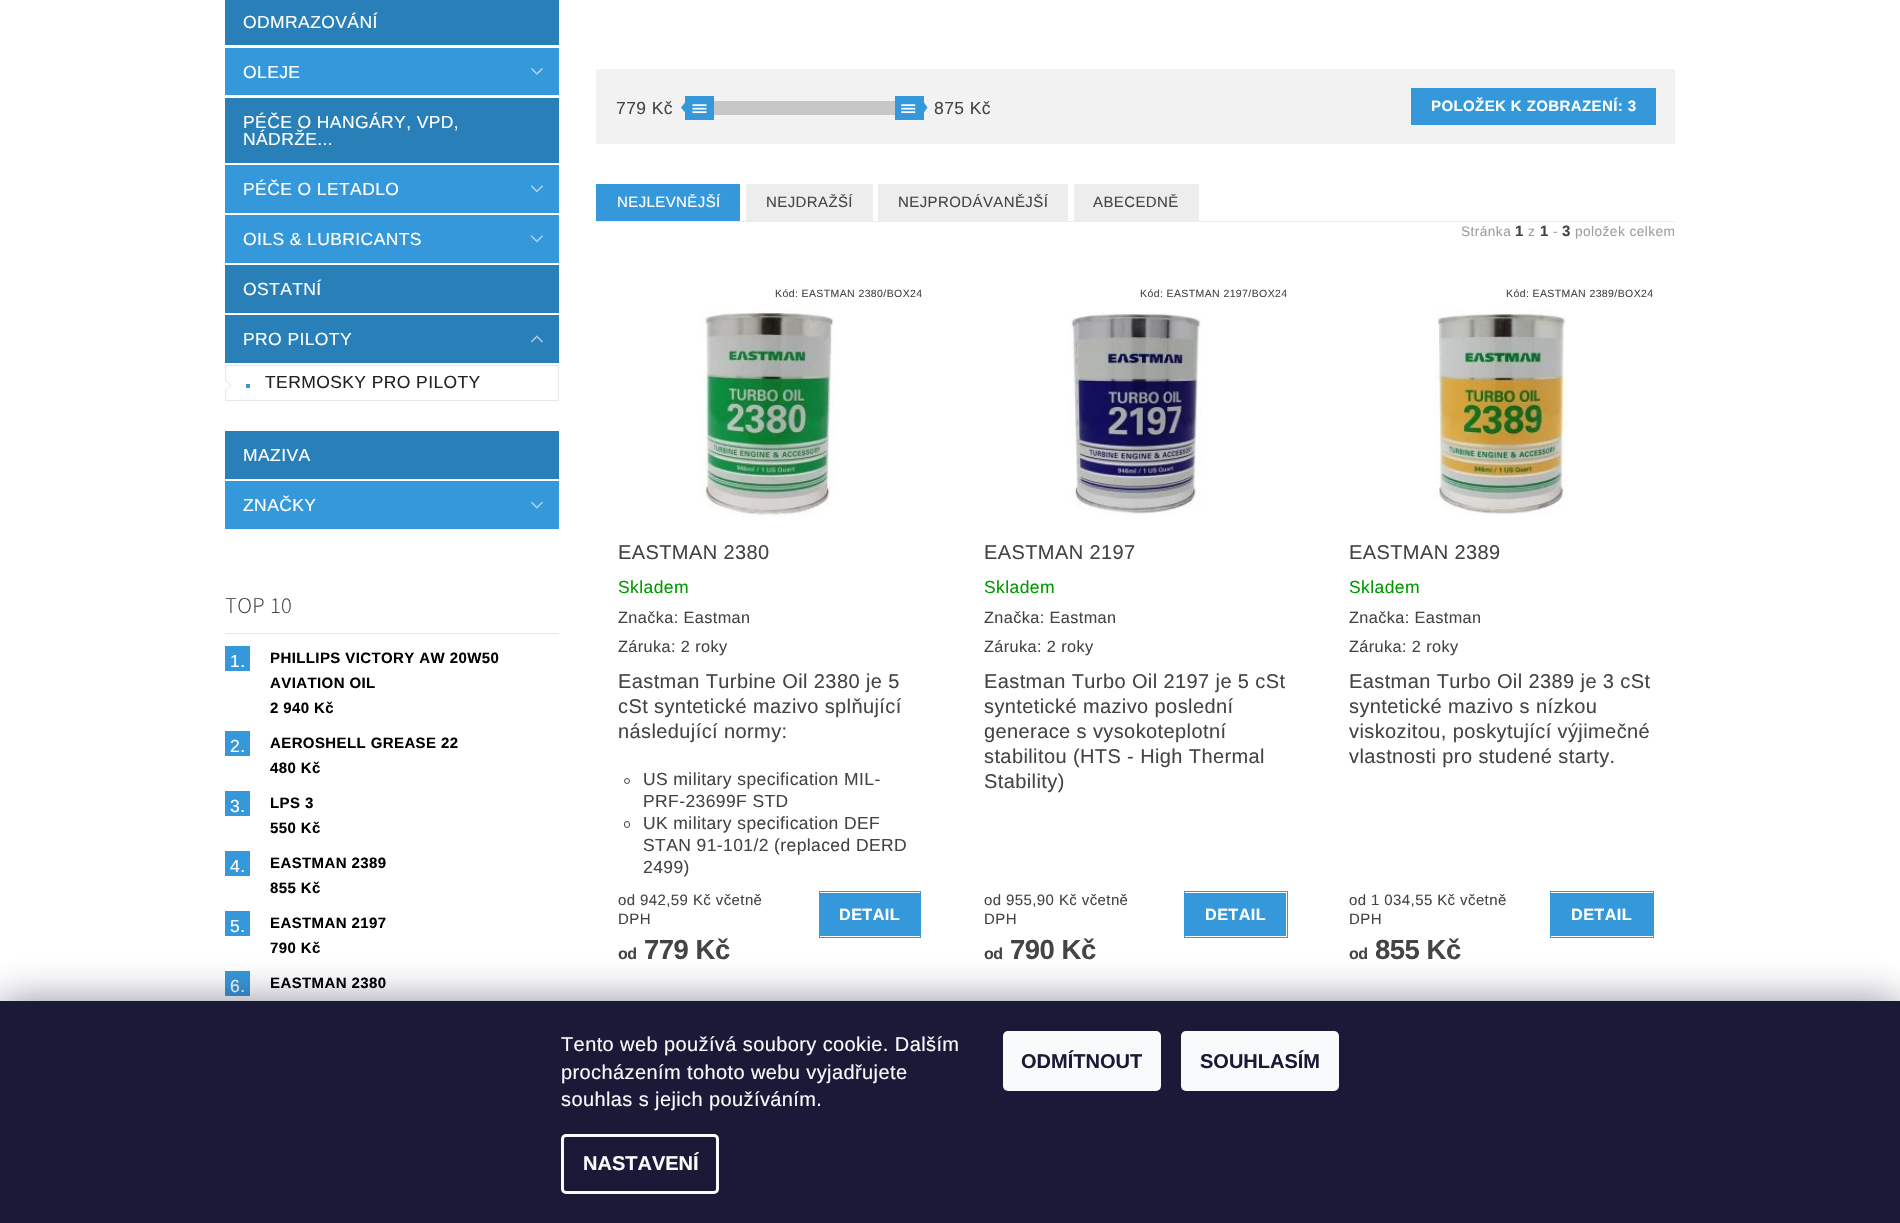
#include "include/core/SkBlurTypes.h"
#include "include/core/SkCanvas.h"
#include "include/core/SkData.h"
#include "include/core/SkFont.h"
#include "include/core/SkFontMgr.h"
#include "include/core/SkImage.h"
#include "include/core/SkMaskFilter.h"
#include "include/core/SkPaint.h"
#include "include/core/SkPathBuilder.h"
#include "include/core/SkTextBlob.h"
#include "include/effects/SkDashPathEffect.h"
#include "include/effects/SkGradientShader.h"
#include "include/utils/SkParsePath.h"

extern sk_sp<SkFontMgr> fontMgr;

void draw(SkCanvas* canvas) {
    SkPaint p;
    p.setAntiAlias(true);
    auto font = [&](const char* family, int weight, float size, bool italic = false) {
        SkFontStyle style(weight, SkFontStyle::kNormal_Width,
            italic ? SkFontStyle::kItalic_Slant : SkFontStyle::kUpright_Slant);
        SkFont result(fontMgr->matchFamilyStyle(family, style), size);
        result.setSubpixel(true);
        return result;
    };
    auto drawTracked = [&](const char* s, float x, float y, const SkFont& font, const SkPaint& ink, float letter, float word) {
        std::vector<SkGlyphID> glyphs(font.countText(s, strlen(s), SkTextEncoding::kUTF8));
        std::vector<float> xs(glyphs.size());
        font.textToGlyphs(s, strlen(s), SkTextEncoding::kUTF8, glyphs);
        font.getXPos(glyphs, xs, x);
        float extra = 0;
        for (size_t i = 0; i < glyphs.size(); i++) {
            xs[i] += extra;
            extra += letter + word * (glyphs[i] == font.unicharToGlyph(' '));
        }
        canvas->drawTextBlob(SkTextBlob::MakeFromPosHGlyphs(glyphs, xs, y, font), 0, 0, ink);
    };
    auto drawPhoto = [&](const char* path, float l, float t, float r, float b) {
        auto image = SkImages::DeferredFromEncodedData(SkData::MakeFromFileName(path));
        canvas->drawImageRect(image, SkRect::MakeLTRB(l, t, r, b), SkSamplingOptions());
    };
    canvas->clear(0xFFFFFFFF);
    p.setColor(0xFF2980B9);
    canvas->drawRect(SkRect::MakeLTRB(225, 0, 559, 45), p);
    auto font1 = font("Liberation Sans", 400, 17.5f);
    p.setColor(0xFFFFFFFF);
    drawTracked("ODMRAZOVÁNÍ", 243, 28, font1, p, 0.4f, 0);
    p.setColor(0xFF3498DB);
    canvas->drawRect(SkRect::MakeLTRB(225, 48, 559, 95), p);
    drawPhoto("media/1.png", 531, 68, 543, 75);
    p.setColor(0xFFFFFFFF);
    drawTracked("OLEJE", 243, 78, font1, p, 0.4f, 0);
    p.setColor(0xFF2980B9);
    canvas->drawRect(SkRect::MakeLTRB(225, 98, 559, 163), p);
    p.setColor(0xFFFFFFFF);
    drawTracked("PÉČE O HANGÁRY, VPD,", 243, 128, font1, p, 0.4f, 0);
    drawTracked("NÁDRŽE...", 243, 145, font1, p, 0.4f, 0);
    p.setColor(0xFF3498DB);
    canvas->drawRect(SkRect::MakeLTRB(225, 165, 559, 213), p);
    drawPhoto("media/2.png", 531, 185, 543, 193);
    p.setColor(0xFFFFFFFF);
    drawTracked("PÉČE O LETADLO", 243, 195, font1, p, 0.4f, 0);
    p.setColor(0xFF3498DB);
    canvas->drawRect(SkRect::MakeLTRB(225, 215, 559, 263), p);
    drawPhoto("media/2.png", 531, 235, 543, 243);
    p.setColor(0xFFFFFFFF);
    drawTracked("OILS & LUBRICANTS", 243, 245, font1, p, 0.4f, 0);
    p.setColor(0xFF2980B9);
    canvas->drawRect(SkRect::MakeLTRB(225, 265, 559, 313), p);
    p.setColor(0xFFFFFFFF);
    drawTracked("OSTATNÍ", 243, 295, font1, p, 0.4f, 0);
    p.setColor(0xFF2980B9);
    canvas->drawRect(SkRect::MakeLTRB(225, 315, 559, 363), p);
    drawPhoto("media/3.png", 531, 335, 543, 343);
    p.setColor(0xFFFFFFFF);
    drawTracked("PRO PILOTY", 243, 345, font1, p, 0.4f, 0);
    p.setStyle(SkPaint::kStroke_Style);
    p.setStrokeWidth(1);
    p.setColor(0xFFE7E7E7);
    canvas->drawRect(SkRect::MakeLTRB(225.5f, 365.5f, 558.5f, 400.5f), p);
    drawPhoto("media/4.png", 225, 380, 232, 391);
    p.setStyle(SkPaint::kFill_Style);
    p.setColor(0xFF3498DB);
    canvas->drawRect(SkRect::MakeLTRB(246, 384, 250, 388), p);
    p.setColor(0xFF222222);
    drawTracked("TERMOSKY PRO PILOTY", 265, 388, font1, p, 0.4f, 0);
    p.setColor(0xFF2980B9);
    canvas->drawRect(SkRect::MakeLTRB(225, 431, 559, 479), p);
    p.setColor(0xFFFFFFFF);
    drawTracked("MAZIVA", 243, 461, font1, p, 0.4f, 0);
    p.setColor(0xFF3498DB);
    canvas->drawRect(SkRect::MakeLTRB(225, 481, 559, 529), p);
    drawPhoto("media/5.png", 531, 501, 543, 509);
    p.setColor(0xFFFFFFFF);
    drawTracked("ZNAČKY", 243, 511, font1, p, 0.4f, 0);
    p.setColor(0xFFE7E7E7);
    canvas->drawRect(SkRect::MakeLTRB(225, 633, 559, 634), p);
    auto font2 = font("Source Sans 3", 300, 22.5f);
    p.setColor(0xFF444444);
    drawTracked("TOP 10", 225, 613, font2, p, 0.4f, 0);
    p.setColor(0xFF3498DB);
    canvas->drawRect(SkRect::MakeLTRB(225, 646, 250, 671), p);
    p.setColor(0xFFFFFFFF);
    drawTracked("1.", 230, 667, font1, p, 0.4f, 0);
    auto font3 = font("Liberation Sans", 700, 15);
    p.setColor(0xFF000000);
    {
        const struct { const char* s; float x, y; } items[] = {
            {"PHILLIPS VICTORY AW 20W50", 270, 663},
            {"AVIATION OIL", 270, 688},
            {"2 940 Kč", 270, 713},
        };
        for (auto [s, x, y] : items) {
            drawTracked(s, x, y, font3, p, 0.4f, 0);
        }
    }
    p.setColor(0xFF3498DB);
    canvas->drawRect(SkRect::MakeLTRB(225, 731, 250, 756), p);
    p.setColor(0xFFFFFFFF);
    drawTracked("2.", 230, 752, font1, p, 0.4f, 0);
    p.setColor(0xFF000000);
    drawTracked("AEROSHELL GREASE 22", 270, 748, font3, p, 0.4f, 0);
    drawTracked("480 Kč", 270, 773, font3, p, 0.4f, 0);
    p.setColor(0xFF3498DB);
    canvas->drawRect(SkRect::MakeLTRB(225, 791, 250, 816), p);
    p.setColor(0xFFFFFFFF);
    drawTracked("3.", 230, 812, font1, p, 0.4f, 0);
    p.setColor(0xFF000000);
    drawTracked("LPS 3", 270, 808, font3, p, 0.4f, 0);
    drawTracked("550 Kč", 270, 833, font3, p, 0.4f, 0);
    p.setColor(0xFF3498DB);
    canvas->drawRect(SkRect::MakeLTRB(225, 851, 250, 876), p);
    p.setColor(0xFFFFFFFF);
    drawTracked("4.", 230, 872, font1, p, 0.4f, 0);
    p.setColor(0xFF000000);
    drawTracked("EASTMAN 2389", 270, 868, font3, p, 0.4f, 0);
    drawTracked("855 Kč", 270, 893, font3, p, 0.4f, 0);
    p.setColor(0xFF3498DB);
    canvas->drawRect(SkRect::MakeLTRB(225, 911, 250, 936), p);
    p.setColor(0xFFFFFFFF);
    drawTracked("5.", 230, 932, font1, p, 0.4f, 0);
    p.setColor(0xFF000000);
    drawTracked("EASTMAN 2197", 270, 928, font3, p, 0.4f, 0);
    drawTracked("790 Kč", 270, 953, font3, p, 0.4f, 0);
    p.setColor(0xFF3498DB);
    canvas->drawRect(SkRect::MakeLTRB(225, 971, 250, 996), p);
    p.setColor(0xFFFFFFFF);
    drawTracked("6.", 230, 992, font1, p, 0.4f, 0);
    p.setColor(0xFF000000);
    drawTracked("EASTMAN 2380", 270, 988, font3, p, 0.4f, 0);
    p.setColor(0xFFF2F2F2);
    canvas->drawRect(SkRect::MakeLTRB(596, 69, 1675, 144), p);
    p.setColor(0xFF444444);
    drawTracked("779 Kč", 616, 114, font1, p, 0.4f, 0);
    p.setColor(0xFF3498DB);
    canvas->drawRect(SkRect::MakeLTRB(685, 96, 714, 120), p);
    canvas->drawPath(SkPathBuilder().moveTo(685, 102.5f).lineTo(685, 112.5f).lineTo(681, 107.5f).close().detach(), p);
    drawPhoto("media/6.png", 692, 104, 707, 114);
    p.setColor(0xFFC7C7C7);
    canvas->drawRect(SkRect::MakeLTRB(714, 101, 895, 115), p);
    p.setColor(0xFF3498DB);
    canvas->drawRect(SkRect::MakeLTRB(895, 96, 924, 120), p);
    drawPhoto("media/7.png", 901, 104, 916, 114);
    canvas->drawPath(SkPathBuilder().moveTo(924, 112.5f).lineTo(924, 102.5f).lineTo(927.5f, 107.5f).close().detach(), p);
    p.setColor(0xFF444444);
    drawTracked("875 Kč", 934, 114, font1, p, 0.4f, 0);
    p.setColor(0xFF3498DB);
    canvas->drawRect(SkRect::MakeLTRB(1411, 88, 1656, 125), p);
    p.setColor(0xFFFFFFFF);
    drawTracked("POLOŽEK K ZOBRAZENÍ: 3", 1431, 111, font3, p, 0.4f, 0);
    p.setColor(0xFFEDEDED);
    canvas->drawRect(SkRect::MakeLTRB(596, 221, 1675, 222), p);
    p.setColor(0xFF3498DB);
    canvas->drawRect(SkRect::MakeLTRB(596, 184, 740, 221), p);
    auto font4 = font("Liberation Sans", 400, 15);
    p.setColor(0xFFFFFFFF);
    drawTracked("NEJLEVNĚJŠÍ", 617, 207, font4, p, 0.4f, 0);
    p.setColor(0xFFEDEDED);
    canvas->drawRect(SkRect::MakeLTRB(746, 184, 873, 221), p);
    p.setColor(0xFF444444);
    drawTracked("NEJDRAŽŠÍ", 766, 207, font4, p, 0.4f, 0);
    p.setColor(0xFFEDEDED);
    canvas->drawRect(SkRect::MakeLTRB(878, 184, 1068, 221), p);
    p.setColor(0xFF444444);
    drawTracked("NEJPRODÁVANĚJŠÍ", 898, 207, font4, p, 0.4f, 0);
    p.setColor(0xFFEDEDED);
    canvas->drawRect(SkRect::MakeLTRB(1074, 184, 1199, 221), p);
    p.setColor(0xFF444444);
    drawTracked("ABECEDNĚ", 1093, 207, font4, p, 0.4f, 0);
    auto font5 = font("Liberation Sans", 400, 13.75f);
    p.setColor(0xFFA0A0A0);
    drawTracked("Stránka", 1461, 236, font5, p, 0.4f, 0);
    p.setColor(0xFF444444);
    drawTracked("1", 1515, 236, font3, p, 0.4f, 0);
    p.setColor(0xFFA0A0A0);
    drawTracked("z", 1528, 236, font5, p, 0.4f, 0);
    p.setColor(0xFF444444);
    drawTracked("1", 1540, 236, font3, p, 0.4f, 0);
    p.setColor(0xFFA0A0A0);
    drawTracked("-", 1553, 236, font5, p, 0.4f, 0);
    p.setColor(0xFF444444);
    drawTracked("3", 1562, 236, font3, p, 0.4f, 0);
    p.setColor(0xFFA0A0A0);
    drawTracked("položek celkem", 1575, 236, font5, p, 0.4f, 0);
    auto font6 = font("Liberation Sans", 400, 10.5f);
    p.setColor(0xFF444444);
    drawTracked("Kód: EASTMAN 2380/BOX24", 775, 297, font6, p, 0.4f, 0);
    drawPhoto("media/8.png", 701, 309, 834, 517);
    auto font7 = font("Liberation Sans", 400, 20);
    drawTracked("EASTMAN 2380", 618, 559, font7, p, 0.4f, 0);
    p.setColor(0xFF009901);
    drawTracked("Skladem", 618, 593, font1, p, 0.4f, 0);
    auto font8 = font("Liberation Sans", 400, 16.25f);
    p.setColor(0xFF444444);
    drawTracked("Značka: Eastman", 618, 623, font8, p, 0.4f, 0);
    drawTracked("Záruka: 2 roky", 618, 652, font8, p, 0.4f, 0);
    {
        const struct { const char* s; float x, y; } items[] = {
            {"Eastman Turbine Oil 2380 je 5", 618, 688},
            {"cSt syntetické mazivo splňující", 618, 713},
            {"následující normy:", 618, 738},
        };
        for (auto [s, x, y] : items) {
            drawTracked(s, x, y, font7, p, 0.4f, 0);
        }
    }
    p.setStyle(SkPaint::kStroke_Style);
    canvas->drawCircle(627, 781, 2.5f, p);
    p.setStyle(SkPaint::kFill_Style);
    drawTracked("US military specification MIL-", 643, 785, font1, p, 0.4f, 0);
    drawTracked("PRF-23699F STD", 643, 807, font1, p, 0.4f, 0);
    p.setStyle(SkPaint::kStroke_Style);
    canvas->drawRoundRect(SkRect::MakeLTRB(624.5f, 821.5f, 629.5f, 827.5f), 2.5f, 2.5f, p);
    p.setStyle(SkPaint::kFill_Style);
    {
        const struct { const char* s; float x, y; } items[] = {
            {"UK military specification DEF", 643, 829},
            {"STAN 91-101/2 (replaced DERD", 643, 851},
            {"2499)", 643, 873},
        };
        for (auto [s, x, y] : items) {
            drawTracked(s, x, y, font1, p, 0.4f, 0);
        }
    }
    drawTracked("od 942,59 Kč včetně", 618, 905, font4, p, 0.4f, 0);
    drawTracked("DPH", 618, 924, font4, p, 0.4f, 0);
    auto font9 = font("Liberation Sans", 700, 16);
    drawTracked("od", 618, 959, font9, p, -0.5f, 0);
    auto font10 = font("Liberation Sans", 700, 27.5f);
    drawTracked("779 Kč", 644, 959, font10, p, -0.5f, 0);
    p.setStyle(SkPaint::kStroke_Style);
    p.setColor(0xFF3498DB);
    canvas->drawRect(SkRect::MakeLTRB(819.5f, 891.5f, 920.5f, 937.5f), p);
    p.setStyle(SkPaint::kFill_Style);
    canvas->drawRect(SkRect::MakeLTRB(820, 893, 920, 936), p);
    auto font11 = font("Liberation Sans", 700, 16.25f);
    p.setColor(0xFFFFFFFF);
    drawTracked("DETAIL", 839, 920, font11, p, 0.4f, 0);
    p.setColor(0xFF444444);
    drawTracked("Kód: EASTMAN 2197/BOX24", 1140, 297, font6, p, 0.4f, 0);
    drawPhoto("media/9.png", 1069, 312, 1202, 516);
    drawTracked("EASTMAN 2197", 984, 559, font7, p, 0.4f, 0);
    p.setColor(0xFF009901);
    drawTracked("Skladem", 984, 593, font1, p, 0.4f, 0);
    p.setColor(0xFF444444);
    drawTracked("Značka: Eastman", 984, 623, font8, p, 0.4f, 0);
    drawTracked("Záruka: 2 roky", 984, 652, font8, p, 0.4f, 0);
    {
        const struct { const char* s; float x, y; } items[] = {
            {"Eastman Turbo Oil 2197 je 5 cSt", 984, 688},
            {"syntetické mazivo poslední", 984, 713},
            {"generace s vysokoteplotní", 984, 738},
            {"stabilitou (HTS - High Thermal", 984, 763},
            {"Stability)", 984, 788},
        };
        for (auto [s, x, y] : items) {
            drawTracked(s, x, y, font7, p, 0.4f, 0);
        }
    }
    drawTracked("od 955,90 Kč včetně", 984, 905, font4, p, 0.4f, 0);
    drawTracked("DPH", 984, 924, font4, p, 0.4f, 0);
    drawTracked("od", 984, 959, font9, p, -0.5f, 0);
    drawTracked("790 Kč", 1010, 959, font10, p, -0.5f, 0);
    p.setStyle(SkPaint::kStroke_Style);
    p.setColor(0xFF3498DB);
    canvas->drawRect(SkRect::MakeLTRB(1184.5f, 891.5f, 1287.5f, 937.5f), p);
    p.setStyle(SkPaint::kFill_Style);
    canvas->drawRect(SkRect::MakeLTRB(1185, 893, 1286, 936), p);
    p.setColor(0xFFFFFFFF);
    drawTracked("DETAIL", 1205, 920, font11, p, 0.4f, 0);
    p.setColor(0xFF444444);
    drawTracked("Kód: EASTMAN 2389/BOX24", 1506, 297, font6, p, 0.4f, 0);
    drawPhoto("media/10.png", 1434, 309, 1568, 516);
    drawTracked("EASTMAN 2389", 1349, 559, font7, p, 0.4f, 0);
    p.setColor(0xFF009901);
    drawTracked("Skladem", 1349, 593, font1, p, 0.4f, 0);
    p.setColor(0xFF444444);
    drawTracked("Značka: Eastman", 1349, 623, font8, p, 0.4f, 0);
    drawTracked("Záruka: 2 roky", 1349, 652, font8, p, 0.4f, 0);
    {
        const struct { const char* s; float x, y; } items[] = {
            {"Eastman Turbo Oil 2389 je 3 cSt", 1349, 688},
            {"syntetické mazivo s nízkou", 1349, 713},
            {"viskozitou, poskytující výjimečné", 1349, 738},
            {"vlastnosti pro studené starty.", 1349, 763},
        };
        for (auto [s, x, y] : items) {
            drawTracked(s, x, y, font7, p, 0.4f, 0);
        }
    }
    drawTracked("od 1 034,55 Kč včetně", 1349, 905, font4, p, 0.4f, 0);
    drawTracked("DPH", 1349, 924, font4, p, 0.4f, 0);
    drawTracked("od", 1349, 959, font9, p, -0.5f, 0);
    drawTracked("855 Kč", 1375, 959, font10, p, -0.5f, 0);
    p.setStyle(SkPaint::kStroke_Style);
    p.setColor(0xFF3498DB);
    canvas->drawRect(SkRect::MakeLTRB(1550.5f, 891.5f, 1653.5f, 937.5f), p);
    p.setStyle(SkPaint::kFill_Style);
    canvas->drawRect(SkRect::MakeLTRB(1551, 893, 1653, 936), p);
    p.setColor(0xFFFFFFFF);
    drawTracked("DETAIL", 1571, 920, font11, p, 0.4f, 0);
    p.setColor(0x801B1939);
    p.setMaskFilter(SkMaskFilter::MakeBlur(kNormal_SkBlurStyle, 19));
    canvas->drawRect(SkRect::MakeLTRB(0, 1001, 1900, 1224), p);
    p.setMaskFilter(nullptr);
    p.setColor(0xFF1A1937);
    canvas->drawRect(SkRect::MakeLTRB(0, 1001, 1900, 1223), p);
    p.setColor(0xFFF8FAFB);
    {
        const struct { const char* s; float x, y; } items[] = {
            {"Tento web používá soubory cookie. Dalším", 561, 1051},
            {"procházením tohoto webu vyjadřujete", 561, 1079},
            {"souhlas s jejich používáním.", 561, 1106},
        };
        for (auto [s, x, y] : items) {
            drawTracked(s, x, y, font7, p, 0.4f, 0);
        }
    }
    p.setStyle(SkPaint::kStroke_Style);
    p.setStrokeWidth(3);
    canvas->drawRoundRect(SkRect::MakeLTRB(562.5f, 1135.5f, 717.5f, 1192.5f), 3.5f, 3.5f, p);
    auto font12 = font("Liberation Sans", 700, 20);
    p.setStyle(SkPaint::kFill_Style);
    canvas->drawString("NASTAVENÍ", 583, 1170, font12, p);
    canvas->drawRoundRect(SkRect::MakeLTRB(1003, 1031, 1161, 1091), 5, 5, p);
    p.setColor(0xFF1A1937);
    canvas->drawString("ODMÍTNOUT", 1021, 1068, font12, p);
    p.setColor(0xFFF8FAFB);
    canvas->drawRoundRect(SkRect::MakeLTRB(1181, 1031, 1339, 1091), 5, 5, p);
    p.setColor(0xFF1A1937);
    canvas->drawString("SOUHLASÍM", 1200, 1068, font12, p);
}
